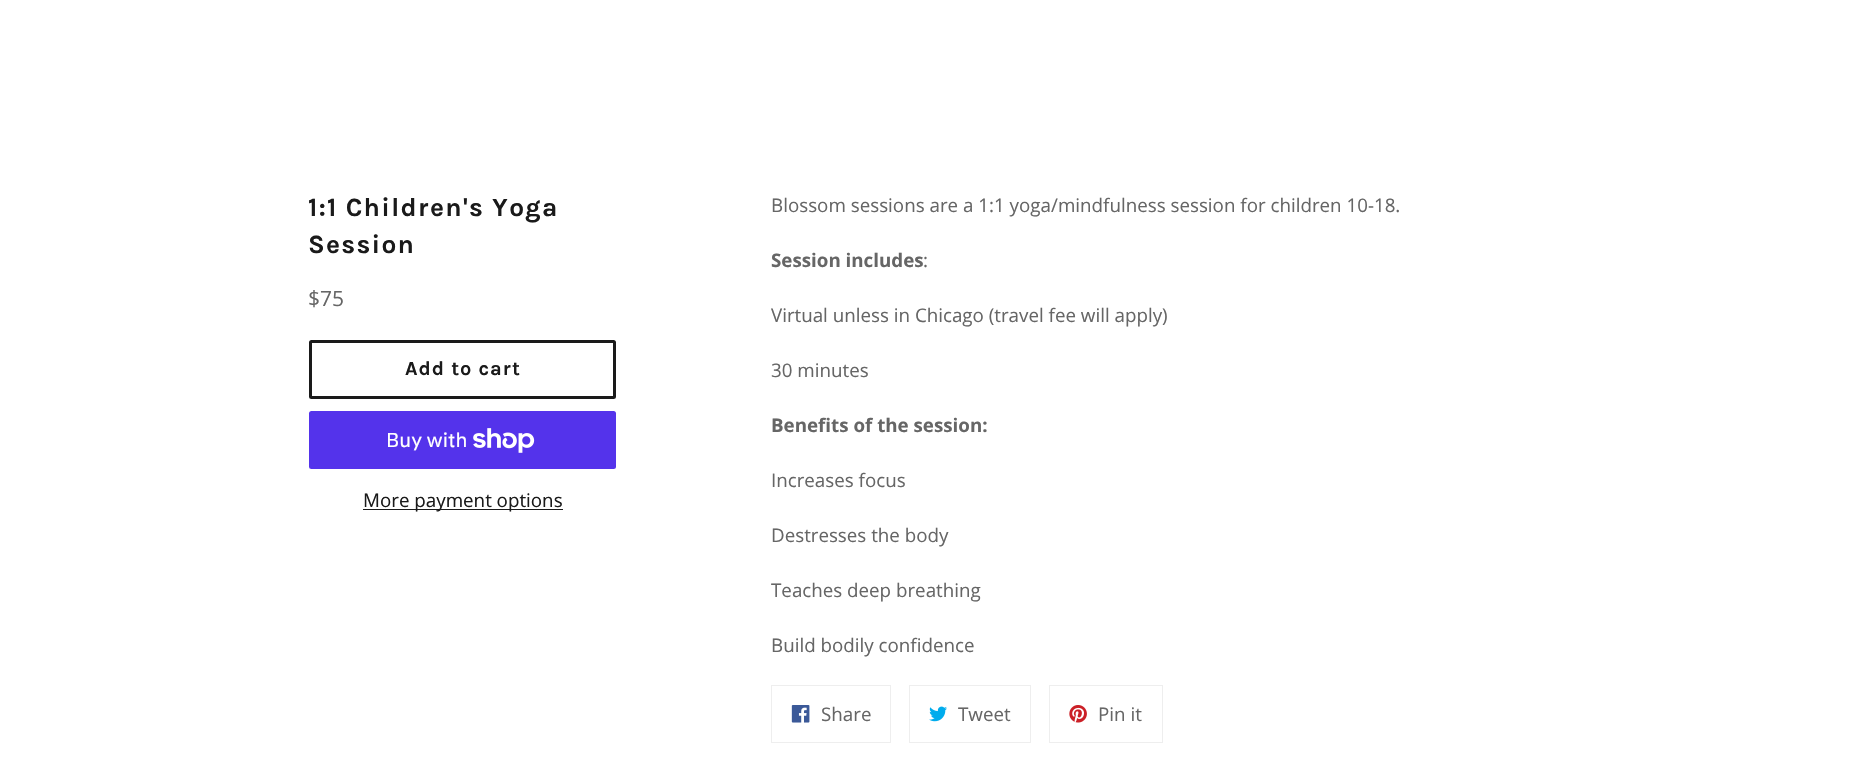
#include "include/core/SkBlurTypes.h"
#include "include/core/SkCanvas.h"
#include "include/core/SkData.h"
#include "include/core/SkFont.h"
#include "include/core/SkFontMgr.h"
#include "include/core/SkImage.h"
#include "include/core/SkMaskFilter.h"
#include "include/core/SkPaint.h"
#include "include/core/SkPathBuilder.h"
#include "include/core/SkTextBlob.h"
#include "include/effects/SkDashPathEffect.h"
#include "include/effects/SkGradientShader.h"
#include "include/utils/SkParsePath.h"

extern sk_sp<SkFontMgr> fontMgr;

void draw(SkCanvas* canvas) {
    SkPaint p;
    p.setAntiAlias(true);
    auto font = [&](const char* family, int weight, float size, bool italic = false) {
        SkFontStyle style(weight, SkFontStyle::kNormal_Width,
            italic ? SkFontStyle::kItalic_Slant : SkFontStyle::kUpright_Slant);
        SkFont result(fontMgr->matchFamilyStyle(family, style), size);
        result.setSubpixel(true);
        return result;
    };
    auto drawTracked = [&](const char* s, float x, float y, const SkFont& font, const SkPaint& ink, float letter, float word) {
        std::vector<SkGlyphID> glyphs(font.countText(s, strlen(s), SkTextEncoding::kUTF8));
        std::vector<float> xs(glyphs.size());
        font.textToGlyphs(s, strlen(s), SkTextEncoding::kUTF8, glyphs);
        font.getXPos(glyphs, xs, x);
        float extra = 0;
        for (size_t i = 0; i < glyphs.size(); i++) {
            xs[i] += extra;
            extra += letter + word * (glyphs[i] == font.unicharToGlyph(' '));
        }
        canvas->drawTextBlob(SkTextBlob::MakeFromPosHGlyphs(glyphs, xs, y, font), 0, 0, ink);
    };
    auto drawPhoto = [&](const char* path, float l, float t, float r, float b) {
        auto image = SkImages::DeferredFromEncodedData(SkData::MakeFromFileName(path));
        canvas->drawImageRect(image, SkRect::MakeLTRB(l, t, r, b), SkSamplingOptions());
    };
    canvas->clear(0xFFFFFFFF);
    auto font1 = font("Karla", 700, 26.25f);
    p.setColor(0xFF1A1A1A);
    drawTracked("1:1 Children's Yoga", 308, 216, font1, p, 1.3f, 0);
    drawTracked("Session", 308, 253, font1, p, 1.3f, 0);
    auto font2 = font("Open Sans", 400, 21);
    p.setColor(0xFF666666);
    canvas->drawString("$75", 308, 306, font2, p);
    p.setStyle(SkPaint::kStroke_Style);
    p.setStrokeWidth(3);
    p.setColor(0xFF1A1A1A);
    canvas->drawRoundRect(SkRect::MakeLTRB(310.5f, 341.5f, 614.5f, 397.5f), 1, 1, p);
    auto font3 = font("Karla", 700, 20);
    p.setStyle(SkPaint::kFill_Style);
    drawTracked("Add to cart", 405, 375, font3, p, 1, 0);
    p.setColor(0xFF5433EB);
    canvas->drawRoundRect(SkRect::MakeLTRB(309, 411, 616, 469), 2.5f, 2.5f, p);
    auto font4 = font("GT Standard", 400, 20);
    p.setColor(0xFFFFFFFF);
    canvas->drawString("Buy with", 386, 447, font4, p);
    drawPhoto("media/1.png", 473, 428, 535, 453);
    p.setColor(0xFF1A1A1A);
    canvas->drawRect(SkRect::MakeLTRB(363, 509, 563, 510), p);
    auto font5 = font("Open Sans", 400, 18.75f);
    canvas->drawString("More payment options", 363, 507, font5, p);
    p.setColor(0xFF666666);
    canvas->drawString("Blossom sessions are a 1:1 yoga/mindfulness session for children 10-18.", 771, 212, font5, p);
    auto font6 = font("Open Sans", 700, 18.75f);
    canvas->drawString("Session includes", 771, 267, font6, p);
    {
        const struct { const char* s; float x, y; } items[] = {
            {":", 923, 267},
            {"Virtual unless in Chicago (travel fee will apply)", 771, 322},
            {"30 minutes", 771, 377},
        };
        for (auto [s, x, y] : items) {
            canvas->drawString(s, x, y, font5, p);
        }
    }
    canvas->drawString("Benefits of the session:", 771, 432, font6, p);
    {
        const struct { const char* s; float x, y; } items[] = {
            {"Increases focus", 771, 487},
            {"Destresses the body", 771, 542},
            {"Teaches deep breathing", 771, 597},
            {"Build bodily confidence", 771, 652},
        };
        for (auto [s, x, y] : items) {
            canvas->drawString(s, x, y, font5, p);
        }
    }
    p.setStyle(SkPaint::kStroke_Style);
    p.setStrokeWidth(1);
    p.setColor(0xFFEEEEEE);
    canvas->drawRect(SkRect::MakeLTRB(771.5f, 685.5f, 890.5f, 742.5f), p);
    drawPhoto("media/2.png", 791, 705, 810, 723);
    p.setStyle(SkPaint::kFill_Style);
    p.setColor(0xFF666666);
    canvas->drawString("Share", 821, 721, font5, p);
    p.setStyle(SkPaint::kStroke_Style);
    p.setColor(0xFFEEEEEE);
    canvas->drawRect(SkRect::MakeLTRB(909.5f, 685.5f, 1030.5f, 742.5f), p);
    drawPhoto("media/3.png", 929, 706, 947, 722);
    p.setStyle(SkPaint::kFill_Style);
    p.setColor(0xFF666666);
    canvas->drawString("Tweet", 958, 721, font5, p);
    p.setStyle(SkPaint::kStroke_Style);
    p.setColor(0xFFEEEEEE);
    canvas->drawRect(SkRect::MakeLTRB(1049.5f, 685.5f, 1162.5f, 742.5f), p);
    drawPhoto("media/4.png", 1069, 705, 1087, 723);
    p.setStyle(SkPaint::kFill_Style);
    p.setColor(0xFF666666);
    canvas->drawString("Pin it", 1098, 721, font5, p);
}
